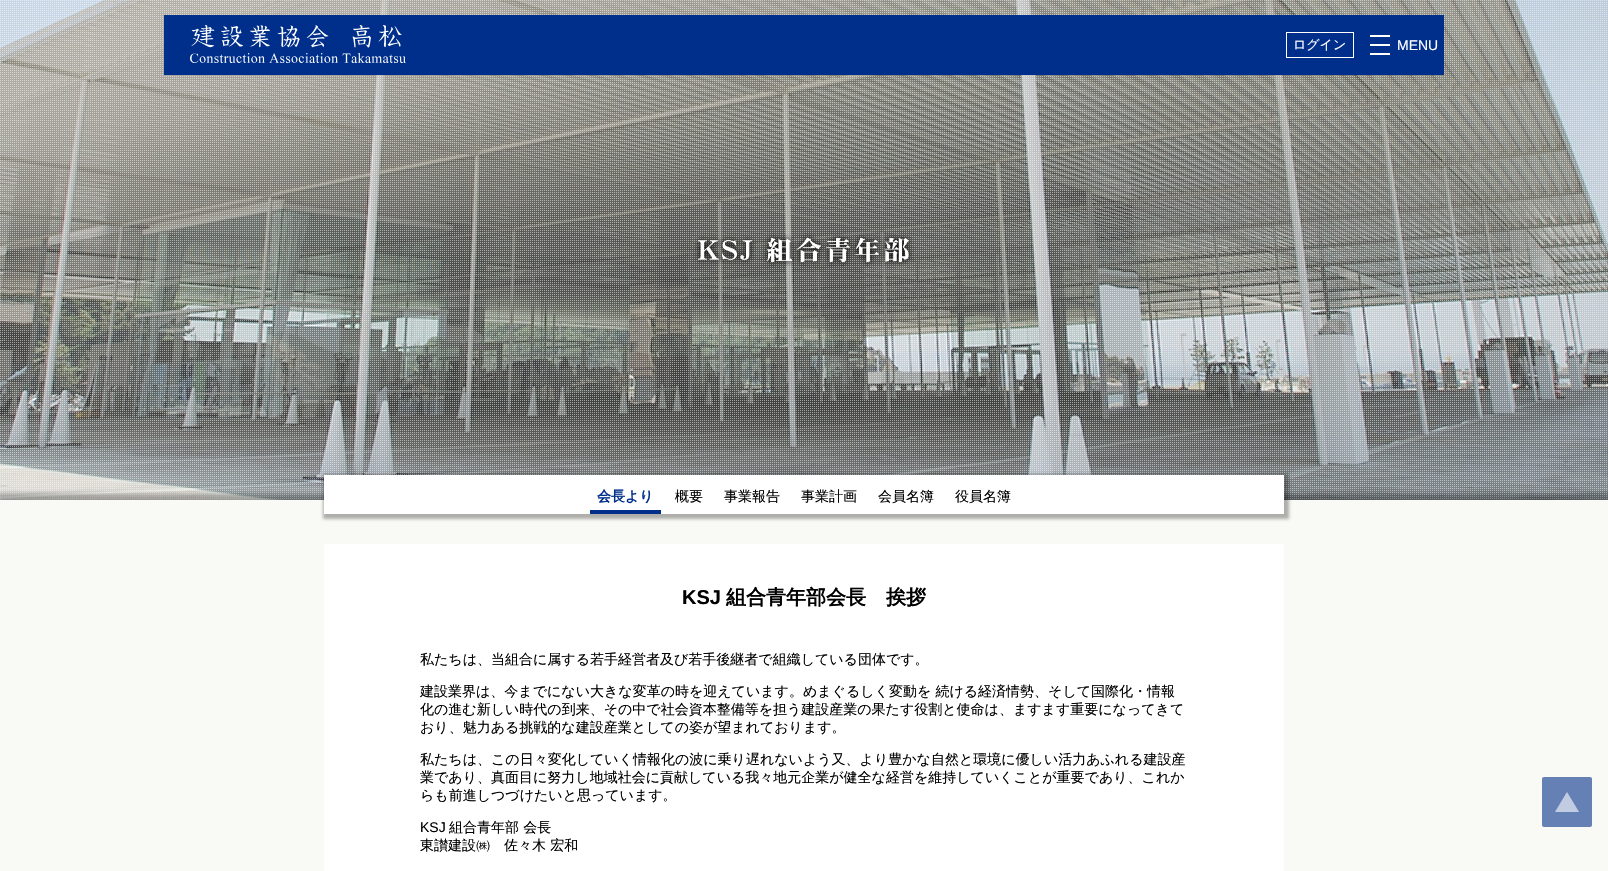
#include "include/core/SkBlurTypes.h"
#include "include/core/SkCanvas.h"
#include "include/core/SkData.h"
#include "include/core/SkFont.h"
#include "include/core/SkFontMgr.h"
#include "include/core/SkImage.h"
#include "include/core/SkMaskFilter.h"
#include "include/core/SkPaint.h"
#include "include/core/SkPathBuilder.h"
#include "include/core/SkTextBlob.h"
#include "include/effects/SkDashPathEffect.h"
#include "include/effects/SkGradientShader.h"
#include "include/utils/SkParsePath.h"

extern sk_sp<SkFontMgr> fontMgr;

void draw(SkCanvas* canvas) {
    SkPaint p;
    p.setAntiAlias(true);
    auto font = [&](const char* family, int weight, float size, bool italic = false) {
        SkFontStyle style(weight, SkFontStyle::kNormal_Width,
            italic ? SkFontStyle::kItalic_Slant : SkFontStyle::kUpright_Slant);
        SkFont result(fontMgr->matchFamilyStyle(family, style), size);
        result.setSubpixel(true);
        return result;
    };
    auto drawPhoto = [&](const char* path, float l, float t, float r, float b) {
        auto image = SkImages::DeferredFromEncodedData(SkData::MakeFromFileName(path));
        canvas->drawImageRect(image, SkRect::MakeLTRB(l, t, r, b), SkSamplingOptions());
    };
    canvas->clear(0xFFF9F9F5);
    drawPhoto("media/1.png", 0, 0, 1608, 500);
    drawPhoto("media/2.png", 0, 0, 1607, 499);
    drawPhoto("media/3.png", 694, 233, 914, 267);
    p.setColor(0xFF002F8B);
    canvas->drawRect(SkRect::MakeLTRB(164, 15, 1444, 75), p);
    drawPhoto("media/4.png", 190, 25, 406, 63);
    p.setStyle(SkPaint::kStroke_Style);
    p.setStrokeWidth(1);
    p.setColor(0xFFFFFFFF);
    canvas->drawRect(SkRect::MakeLTRB(1286.5f, 32.5f, 1353.5f, 57.5f), p);
    auto font1 = font("WenQuanYi Zen Hei", 500, 13);
    p.setStyle(SkPaint::kFill_Style);
    canvas->drawString("ログイン", 1293, 49, font1, p);
    canvas->drawRect(SkRect::MakeLTRB(1370, 35, 1390, 37), p);
    canvas->drawRect(SkRect::MakeLTRB(1370, 44, 1390, 46), p);
    auto font2 = font("Liberation Sans", 400, 14);
    canvas->drawString("MENU", 1397, 50, font2, p);
    canvas->drawRect(SkRect::MakeLTRB(1370, 53, 1390, 55), p);
    canvas->save();
    canvas->clipRect(SkRect::MakeLTRB(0, 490, 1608, 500));
    p.setColor(0x4D000000);
    p.setMaskFilter(SkMaskFilter::MakeBlur(kNormal_SkBlurStyle, 2.5f));
    canvas->drawRect(SkRect::MakeLTRB(-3, 494, 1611, 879), p);
    p.setMaskFilter(nullptr);
    canvas->restore();
    p.setMaskFilter(SkMaskFilter::MakeBlur(kNormal_SkBlurStyle, 1.5f));
    canvas->drawRect(SkRect::MakeLTRB(323, 474, 1289, 519), p);
    p.setMaskFilter(nullptr);
    p.setColor(0xFFFFFFFF);
    canvas->drawRect(SkRect::MakeLTRB(324, 475, 1284, 514), p);
    p.setColor(0xFF002F8B);
    canvas->drawRect(SkRect::MakeLTRB(590, 510, 661, 514), p);
    auto font3 = font("WenQuanYi Zen Hei", 700, 14);
    canvas->drawString("会長より", 597, 501, font3, p);
    auto font4 = font("WenQuanYi Zen Hei", 500, 14);
    p.setColor(0xFF000000);
    {
        const struct { const char* s; float x, y; } items[] = {
            {"概要", 675, 501},
            {"事業報告", 724, 501},
            {"事業計画", 801, 501},
            {"会員名簿", 878, 501},
            {"役員名簿", 955, 501},
        };
        for (auto [s, x, y] : items) {
            canvas->drawString(s, x, y, font4, p);
        }
    }
    p.setColor(0xFFFFFFFF);
    canvas->drawRect(SkRect::MakeLTRB(324, 544, 1284, 871), p);
    auto font5 = font("Liberation Sans", 700, 20);
    p.setColor(0xFF000000);
    canvas->drawString("KSJ", 682, 604, font5, p);
    auto font6 = font("WenQuanYi Zen Hei", 700, 20);
    canvas->drawString("組合青年部会長　挨拶", 726, 604, font6, p);
    {
        const struct { const char* s; float x, y; } items[] = {
            {"私たちは、当組合に属する若手経営者及び若手後継者で組織している団体です。", 420, 664},
            {"建設業界は、今までにない大きな変革の時を迎えています。めまぐるしく変動を 続ける経済情勢、そして国際化・情報", 420, 696},
            {"化の進む新しい時代の到来、その中で社会資本整備等を担う建設産業の果たす役割と使命は、ますます重要になってきて", 420, 714},
            {"おり、魅力ある挑戦的な建設産業としての姿が望まれております。", 420, 732},
            {"私たちは、この日々変化していく情報化の波に乗り遅れないよう又、より豊かな自然と環境に優しい活力あふれる建設産", 420, 764},
            {"業であり、真面目に努力し地域社会に貢献している我々地元企業が健全な経営を維持していくことが重要であり、これか", 420, 782},
            {"らも前進しつづけたいと思っています。", 420, 800},
        };
        for (auto [s, x, y] : items) {
            canvas->drawString(s, x, y, font4, p);
        }
    }
    canvas->drawString("KSJ", 420, 832, font2, p);
    canvas->drawString("組合青年部 会長", 449, 832, font4, p);
    canvas->drawString("東讃建設㈱　佐々木 宏和", 420, 850, font4, p);
    p.setColor(0xFF6480B5);
    canvas->drawRoundRect(SkRect::MakeLTRB(1542, 777, 1592, 827), 2, 2, p);
    drawPhoto("media/5.png", 1555, 792, 1579, 812);
}
